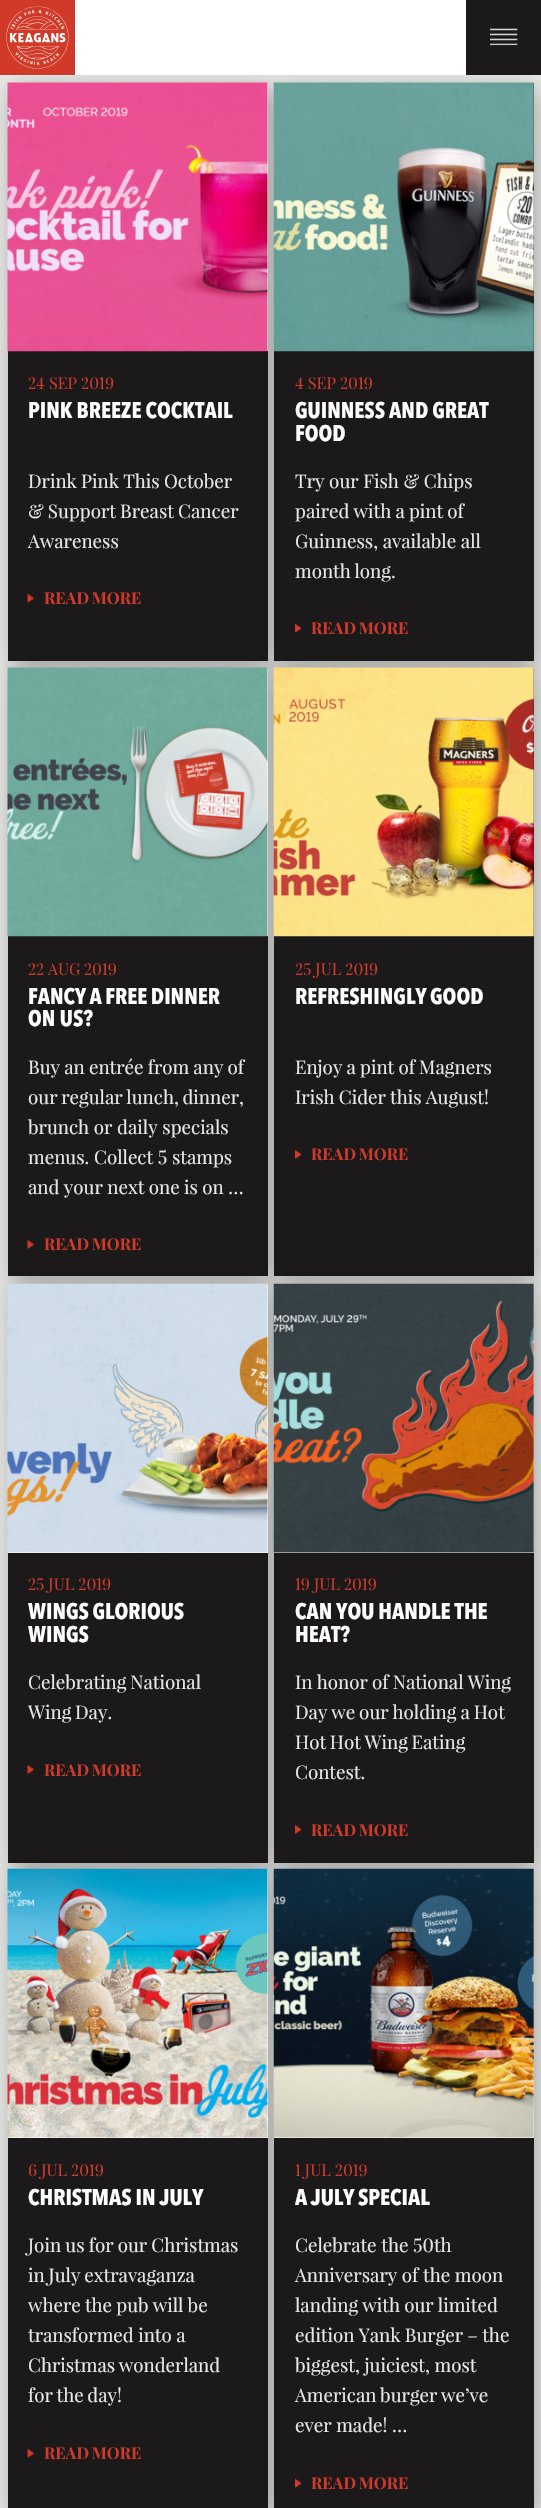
#include "include/core/SkBlurTypes.h"
#include "include/core/SkCanvas.h"
#include "include/core/SkData.h"
#include "include/core/SkFont.h"
#include "include/core/SkFontMgr.h"
#include "include/core/SkImage.h"
#include "include/core/SkMaskFilter.h"
#include "include/core/SkPaint.h"
#include "include/core/SkPathBuilder.h"
#include "include/core/SkTextBlob.h"
#include "include/effects/SkDashPathEffect.h"
#include "include/effects/SkGradientShader.h"
#include "include/utils/SkParsePath.h"

extern sk_sp<SkFontMgr> fontMgr;

void draw(SkCanvas* canvas) {
    SkPaint p;
    p.setAntiAlias(true);
    auto font = [&](const char* family, int weight, float size, bool italic = false) {
        SkFontStyle style(weight, SkFontStyle::kNormal_Width,
            italic ? SkFontStyle::kItalic_Slant : SkFontStyle::kUpright_Slant);
        SkFont result(fontMgr->matchFamilyStyle(family, style), size);
        result.setSubpixel(true);
        return result;
    };
    auto drawTracked = [&](const char* s, float x, float y, const SkFont& font, const SkPaint& ink, float letter, float word) {
        std::vector<SkGlyphID> glyphs(font.countText(s, strlen(s), SkTextEncoding::kUTF8));
        std::vector<float> xs(glyphs.size());
        font.textToGlyphs(s, strlen(s), SkTextEncoding::kUTF8, glyphs);
        font.getXPos(glyphs, xs, x);
        float extra = 0;
        for (size_t i = 0; i < glyphs.size(); i++) {
            xs[i] += extra;
            extra += letter + word * (glyphs[i] == font.unicharToGlyph(' '));
        }
        canvas->drawTextBlob(SkTextBlob::MakeFromPosHGlyphs(glyphs, xs, y, font), 0, 0, ink);
    };
    auto drawPhoto = [&](const char* path, float l, float t, float r, float b) {
        auto image = SkImages::DeferredFromEncodedData(SkData::MakeFromFileName(path));
        canvas->drawImageRect(image, SkRect::MakeLTRB(l, t, r, b), SkSamplingOptions());
    };
    canvas->clear(0xFFEAEAE8);
    p.setColor(0x4D000000);
    p.setMaskFilter(SkMaskFilter::MakeBlur(kNormal_SkBlurStyle, 12.5f));
    canvas->drawRect(SkRect::MakeLTRB(11, 88, 271, 666), p);
    p.setMaskFilter(nullptr);
    p.setColor(0xFF1C191B);
    canvas->drawRect(SkRect::MakeLTRB(8, 351, 268, 661), p);
    p.setColor(0x4D000000);
    p.setMaskFilter(SkMaskFilter::MakeBlur(kNormal_SkBlurStyle, 12.5f));
    canvas->drawRect(SkRect::MakeLTRB(278, 88, 538, 666), p);
    p.setMaskFilter(nullptr);
    p.setColor(0xFFFFFFFF);
    canvas->drawRect(SkRect::MakeLTRB(75, 0, 466, 75), p);
    p.setColor(0xFFD13A29);
    canvas->drawRect(SkRect::MakeLTRB(0, 0, 75, 75), p);
    drawPhoto("media/1.png", 6, 6, 69, 69);
    p.setColor(0xFF1C191B);
    canvas->drawRect(SkRect::MakeLTRB(466, 0, 541, 75), p);
    drawPhoto("media/2.png", 490, 28, 518, 46);
    p.setColor(0xFFFFFFFF);
    canvas->drawRect(SkRect::MakeLTRB(267, 83, 268, 351), p);
    drawPhoto("media/3.png", 7, 82, 268, 352);
    auto font1 = font("Playfair Display", 400, 16.25f);
    p.setColor(0xFFD03A29);
    canvas->drawString("24 SEP 2019", 28, 389, font1, p);
    auto font2 = font("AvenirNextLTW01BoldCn", 700, 22.5f);
    p.setColor(0xFFFDFDFD);
    drawTracked("PINK BREEZE COCKTAIL", 28, 418, font2, p, 0, -0.5f);
    auto font3 = font("Playfair Display", 400, 18.75f);
    p.setColor(0xFFE7E7E7);
    drawTracked("Drink Pink This October", 28, 488, font3, p, 0, -0.5f);
    drawTracked("& Support Breast Cancer", 28, 518, font3, p, 0, -0.5f);
    canvas->drawString("Awareness", 28, 548, font3, p);
    drawPhoto("media/4.png", 27, 593, 34, 603);
    auto font4 = font("Playfair Display", 700, 16.25f);
    p.setColor(0xFFD03A29);
    drawTracked("READ MORE", 44, 604, font4, p, 0, -1);
    p.setColor(0xFF1C191B);
    canvas->drawRect(SkRect::MakeLTRB(274, 83, 534, 661), p);
    drawPhoto("media/5.png", 273, 82, 534, 352);
    p.setColor(0xFFD03A29);
    canvas->drawString("4 SEP 2019", 295, 389, font1, p);
    p.setColor(0xFFFDFDFD);
    drawTracked("GUINNESS AND GREAT", 295, 418, font2, p, 0, -0.5f);
    canvas->drawString("FOOD", 295, 441, font2, p);
    p.setColor(0xFFE7E7E7);
    canvas->drawString("Try our Fish & Chips", 295, 488, font3, p);
    drawTracked("paired with a pint of", 295, 518, font3, p, 0, -0.5f);
    canvas->drawString("Guinness, available all", 295, 548, font3, p);
    drawTracked("month long.", 295, 578, font3, p, 0, -1);
    drawPhoto("media/6.png", 295, 623, 301, 633);
    p.setColor(0x4D000000);
    p.setMaskFilter(SkMaskFilter::MakeBlur(kNormal_SkBlurStyle, 12.5f));
    canvas->drawRect(SkRect::MakeLTRB(11, 673, 271, 1281), p);
    p.setMaskFilter(nullptr);
    p.setColor(0xFF1C191B);
    canvas->drawRect(SkRect::MakeLTRB(8, 936, 268, 1276), p);
    p.setColor(0x4D000000);
    p.setMaskFilter(SkMaskFilter::MakeBlur(kNormal_SkBlurStyle, 12.5f));
    canvas->drawRect(SkRect::MakeLTRB(278, 673, 538, 1281), p);
    p.setMaskFilter(nullptr);
    p.setColor(0xFFD03A29);
    drawTracked("READ MORE", 311, 634, font4, p, 0, -1);
    p.setColor(0xFFFFFFFF);
    canvas->drawRect(SkRect::MakeLTRB(267, 668, 268, 936), p);
    drawPhoto("media/7.png", 7, 667, 268, 937);
    p.setColor(0xFFD03A29);
    drawTracked("22 AUG 2019", 28, 975, font1, p, 0, -0.5f);
    p.setColor(0xFFFDFDFD);
    drawTracked("FANCY A FREE DINNER", 28, 1004, font2, p, 0, -1);
    canvas->drawString("ON US?", 28, 1026, font2, p);
    p.setColor(0xFFE7E7E7);
    drawTracked("Buy an entrée from any of", 28, 1074, font3, p, 0, -0.5f);
    drawTracked("our regular lunch, dinner,", 28, 1104, font3, p, 0, -1);
    canvas->drawString("brunch or daily specials", 28, 1134, font3, p);
    canvas->drawString("menus. Collect 5 stamps", 28, 1164, font3, p);
    drawTracked("and your next one is on …", 28, 1194, font3, p, 0, -0.25f);
    drawPhoto("media/8.png", 27, 1240, 34, 1250);
    p.setColor(0xFF1C191B);
    canvas->drawRect(SkRect::MakeLTRB(274, 668, 534, 1276), p);
    p.setColor(0x4D000000);
    p.setMaskFilter(SkMaskFilter::MakeBlur(kNormal_SkBlurStyle, 12.5f));
    canvas->drawRect(SkRect::MakeLTRB(11, 1289, 271, 1868), p);
    p.setMaskFilter(nullptr);
    p.setColor(0xFFD03A29);
    drawTracked("READ MORE", 44, 1250, font4, p, 0, -1);
    drawPhoto("media/9.png", 273, 667, 534, 937);
    canvas->drawString("25 JUL 2019", 295, 975, font1, p);
    p.setColor(0xFFFDFDFD);
    drawTracked("REFRESHINGLY GOOD", 295, 1004, font2, p, 0, -1);
    p.setColor(0xFFE7E7E7);
    drawTracked("Enjoy a pint of Magners", 295, 1074, font3, p, 0, -0.5f);
    drawTracked("Irish Cider this August!", 295, 1104, font3, p, 0, -0.5f);
    drawPhoto("media/10.png", 295, 1150, 301, 1160);
    p.setColor(0xFFD03A29);
    drawTracked("READ MORE", 311, 1160, font4, p, 0, -1);
    p.setColor(0xFF1C191B);
    canvas->drawRect(SkRect::MakeLTRB(8, 1553, 268, 1863), p);
    p.setColor(0x4D000000);
    p.setMaskFilter(SkMaskFilter::MakeBlur(kNormal_SkBlurStyle, 12.5f));
    canvas->drawRect(SkRect::MakeLTRB(278, 1289, 538, 1868), p);
    p.setMaskFilter(nullptr);
    p.setColor(0xFFFFFFFF);
    canvas->drawRect(SkRect::MakeLTRB(8, 1284, 268, 1553), p);
    drawPhoto("media/11.png", 7, 1283, 268, 1553);
    p.setColor(0xFFD03A29);
    canvas->drawString("25 JUL 2019", 28, 1590, font1, p);
    p.setColor(0xFFFDFDFD);
    drawTracked("WINGS GLORIOUS", 28, 1619, font2, p, 0, -1);
    canvas->drawString("WINGS", 28, 1642, font2, p);
    p.setColor(0xFFE7E7E7);
    drawTracked("Celebrating National", 28, 1689, font3, p, 0, -1);
    drawTracked("Wing Day.", 28, 1719, font3, p, 0, -1);
    drawPhoto("media/8.png", 27, 1765, 34, 1775);
    p.setColor(0xFFD03A29);
    drawTracked("READ MORE", 44, 1776, font4, p, 0, -1);
    p.setColor(0xFF1C191B);
    canvas->drawRect(SkRect::MakeLTRB(274, 1553, 534, 1863), p);
    p.setColor(0xFFFFFFFF);
    canvas->drawRect(SkRect::MakeLTRB(274, 1284, 534, 1553), p);
    drawPhoto("media/12.png", 273, 1283, 534, 1553);
    p.setColor(0xFFD03A29);
    canvas->drawString("19 JUL 2019", 295, 1590, font1, p);
    p.setColor(0xFFFDFDFD);
    drawTracked("CAN YOU HANDLE THE", 295, 1619, font2, p, 0, -0.5f);
    canvas->drawString("HEAT?", 295, 1642, font2, p);
    p.setColor(0xFFE7E7E7);
    drawTracked("In honor of National Wing", 295, 1689, font3, p, 0, -0.5f);
    drawTracked("Day we our holding a Hot", 295, 1719, font3, p, 0, -0.75f);
    drawTracked("Hot Hot Wing Eating", 295, 1749, font3, p, 0, -1);
    canvas->drawString("Contest.", 295, 1779, font3, p);
    drawPhoto("media/10.png", 295, 1825, 301, 1835);
    p.setColor(0x4D000000);
    p.setMaskFilter(SkMaskFilter::MakeBlur(kNormal_SkBlurStyle, 12.5f));
    canvas->drawRect(SkRect::MakeLTRB(11, 1874, 271, 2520), p);
    p.setMaskFilter(nullptr);
    p.setColor(0xFF1C191B);
    canvas->drawRect(SkRect::MakeLTRB(8, 2138, 268, 2508), p);
    p.setColor(0x4D000000);
    p.setMaskFilter(SkMaskFilter::MakeBlur(kNormal_SkBlurStyle, 12.5f));
    canvas->drawRect(SkRect::MakeLTRB(278, 1874, 538, 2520), p);
    p.setMaskFilter(nullptr);
    p.setColor(0xFFD03A29);
    drawTracked("READ MORE", 311, 1836, font4, p, 0, -1);
    p.setColor(0xFFFFFFFF);
    canvas->drawRect(SkRect::MakeLTRB(8, 1869, 268, 2138), p);
    drawPhoto("media/13.png", 7, 1868, 268, 2138);
    p.setColor(0xFFD03A29);
    canvas->drawString("6 JUL 2019", 28, 2176, font1, p);
    p.setColor(0xFFFDFDFD);
    drawTracked("CHRISTMAS IN JULY", 28, 2205, font2, p, 0, -0.5f);
    p.setColor(0xFFE7E7E7);
    drawTracked("Join us for our Christmas", 28, 2252, font3, p, 0, -0.5f);
    drawTracked("in July extravaganza", 28, 2282, font3, p, 0, -0.75f);
    drawTracked("where the pub will be", 28, 2312, font3, p, 0, -0.5f);
    drawTracked("transformed into a", 28, 2342, font3, p, 0, -0.25f);
    drawTracked("Christmas wonderland", 28, 2372, font3, p, 0, -1);
    drawTracked("for the day!", 28, 2402, font3, p, 0, -1);
    drawPhoto("media/4.png", 27, 2448, 34, 2458);
    p.setColor(0xFFD03A29);
    drawTracked("READ MORE", 44, 2459, font4, p, 0, -1);
    p.setColor(0xFF1C191B);
    canvas->drawRect(SkRect::MakeLTRB(274, 2138, 534, 2508), p);
    p.setColor(0xFFFFFFFF);
    canvas->drawRect(SkRect::MakeLTRB(274, 1869, 534, 2138), p);
    drawPhoto("media/14.png", 273, 1868, 534, 2138);
    p.setColor(0xFFD03A29);
    canvas->drawString("1 JUL 2019", 295, 2176, font1, p);
    p.setColor(0xFFFDFDFD);
    drawTracked("A JULY SPECIAL", 295, 2205, font2, p, 0, -1);
    p.setColor(0xFFE7E7E7);
    canvas->drawString("Celebrate the 50th", 295, 2252, font3, p);
    canvas->drawString("Anniversary of the moon", 295, 2282, font3, p);
    drawTracked("landing with our limited", 295, 2312, font3, p, 0, -0.5f);
    drawTracked("edition Yank Burger – the", 295, 2342, font3, p, 0, -0.5f);
    canvas->drawString("biggest, juiciest, most", 295, 2372, font3, p);
    drawTracked("American burger we’ve", 295, 2402, font3, p, 0, -1);
    canvas->drawString("ever made! …", 295, 2432, font3, p);
    drawPhoto("media/6.png", 295, 2478, 301, 2488);
    p.setColor(0xFFD03A29);
    drawTracked("READ MORE", 311, 2489, font4, p, 0, -1);
}
